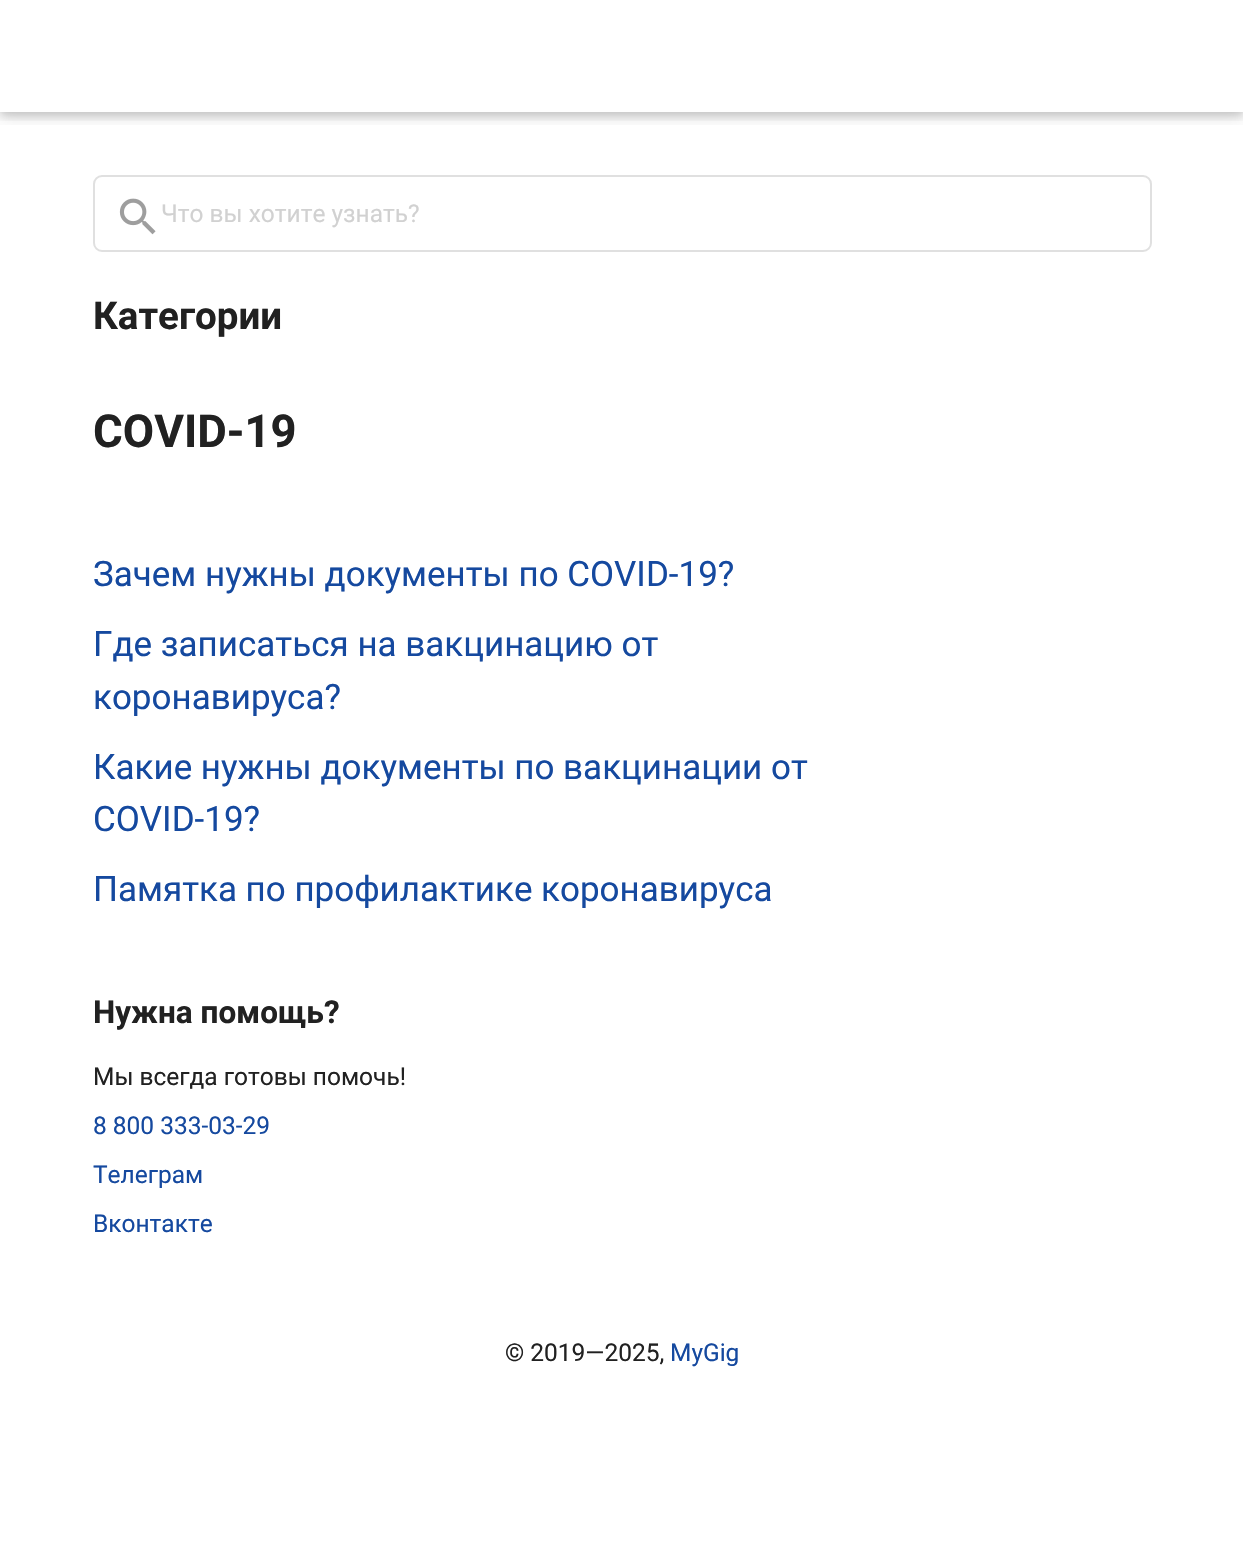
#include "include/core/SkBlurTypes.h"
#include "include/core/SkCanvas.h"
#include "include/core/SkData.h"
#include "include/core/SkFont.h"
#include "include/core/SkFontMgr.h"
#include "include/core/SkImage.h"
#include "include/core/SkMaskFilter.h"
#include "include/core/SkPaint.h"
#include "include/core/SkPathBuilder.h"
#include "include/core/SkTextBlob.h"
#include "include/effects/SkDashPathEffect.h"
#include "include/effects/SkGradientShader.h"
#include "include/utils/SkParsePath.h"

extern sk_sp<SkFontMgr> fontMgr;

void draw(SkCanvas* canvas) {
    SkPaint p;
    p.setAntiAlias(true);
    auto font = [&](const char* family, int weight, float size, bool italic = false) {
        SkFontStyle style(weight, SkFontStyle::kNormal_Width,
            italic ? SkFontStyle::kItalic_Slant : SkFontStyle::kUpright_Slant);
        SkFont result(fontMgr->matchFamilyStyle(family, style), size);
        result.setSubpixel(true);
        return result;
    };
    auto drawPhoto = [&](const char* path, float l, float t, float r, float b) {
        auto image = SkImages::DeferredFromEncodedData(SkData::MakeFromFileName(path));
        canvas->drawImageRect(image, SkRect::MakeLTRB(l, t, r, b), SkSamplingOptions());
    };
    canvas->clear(0xFFFFFFFF);
    canvas->save();
    canvas->clipRect(SkRect::MakeLTRB(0, 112, 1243, 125));
    p.setColor(0x1F000000);
    p.setMaskFilter(SkMaskFilter::MakeBlur(kNormal_SkBlurStyle, 9));
    canvas->drawRect(SkRect::MakeLTRB(0, 4, 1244, 116), p);
    p.setMaskFilter(nullptr);
    canvas->restore();
    canvas->save();
    canvas->clipRect(SkRect::MakeLTRB(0, 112, 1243, 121));
    p.setColor(0x29000000);
    p.setMaskFilter(SkMaskFilter::MakeBlur(kNormal_SkBlurStyle, 4.5f));
    canvas->drawRect(SkRect::MakeLTRB(0, 4, 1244, 116), p);
    p.setMaskFilter(nullptr);
    canvas->restore();
    p.setStyle(SkPaint::kStroke_Style);
    p.setStrokeWidth(2);
    p.setColor(0xFFE0E0E0);
    canvas->drawRoundRect(SkRect::MakeLTRB(94, 176, 1151, 251), 8, 8, p);
    drawPhoto("media/1.png", 119, 198, 156, 235);
    auto font1 = font("Roboto", 400, 24.5f);
    p.setStyle(SkPaint::kFill_Style);
    p.setColor(0xFFD1D1D1);
    canvas->drawString("Что вы хотите узнать?", 161, 222, font1, p);
    auto font2 = font("Roboto", 700, 38.5f);
    p.setColor(0xFF212121);
    canvas->drawString("Категории", 93, 329, font2, p);
    auto font3 = font("Roboto", 700, 45.5f);
    canvas->drawString("COVID-19", 93, 447, font3, p);
    auto font4 = font("Roboto", 400, 35);
    p.setColor(0xFF15499F);
    {
        const struct { const char* s; float x, y; } items[] = {
            {"Зачем нужны документы по COVID-19?", 93, 586},
            {"Где записаться на вакцинацию от", 93, 656},
            {"коронавируса?", 93, 709},
            {"Какие нужны документы по вакцинации от", 93, 779},
            {"COVID-19?", 93, 831},
            {"Памятка по профилактике коронавируса", 93, 901},
        };
        for (auto [s, x, y] : items) {
            canvas->drawString(s, x, y, font4, p);
        }
    }
    auto font5 = font("Roboto", 700, 31.5f);
    p.setColor(0xFF212121);
    canvas->drawString("Нужна помощь?", 93, 1023, font5, p);
    canvas->drawString("Мы всегда готовы помочь!", 93, 1085, font1, p);
    p.setColor(0xFF15499F);
    {
        const struct { const char* s; float x, y; } items[] = {
            {"8 800 333-03-29", 93, 1134},
            {"Телеграм", 93, 1183},
            {"Вконтакте", 93, 1232},
        };
        for (auto [s, x, y] : items) {
            canvas->drawString(s, x, y, font1, p);
        }
    }
    p.setColor(0xFF212121);
    canvas->drawString("© 2019—2025,", 505, 1361, font1, p);
    p.setColor(0xFF15499F);
    canvas->drawString("MyGig", 670, 1361, font1, p);
}
